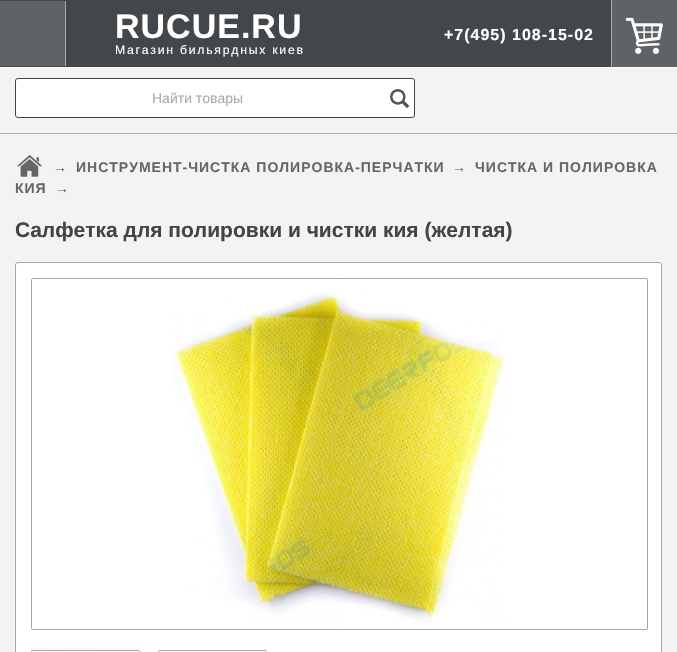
#include "include/core/SkBlurTypes.h"
#include "include/core/SkCanvas.h"
#include "include/core/SkData.h"
#include "include/core/SkFont.h"
#include "include/core/SkFontMgr.h"
#include "include/core/SkImage.h"
#include "include/core/SkMaskFilter.h"
#include "include/core/SkPaint.h"
#include "include/core/SkPathBuilder.h"
#include "include/core/SkTextBlob.h"
#include "include/effects/SkDashPathEffect.h"
#include "include/effects/SkGradientShader.h"
#include "include/utils/SkParsePath.h"

extern sk_sp<SkFontMgr> fontMgr;

void draw(SkCanvas* canvas) {
    SkPaint p;
    p.setAntiAlias(true);
    auto font = [&](const char* family, int weight, float size, bool italic = false) {
        SkFontStyle style(weight, SkFontStyle::kNormal_Width,
            italic ? SkFontStyle::kItalic_Slant : SkFontStyle::kUpright_Slant);
        SkFont result(fontMgr->matchFamilyStyle(family, style), size);
        result.setSubpixel(true);
        return result;
    };
    auto drawTracked = [&](const char* s, float x, float y, const SkFont& font, const SkPaint& ink, float letter, float word) {
        std::vector<SkGlyphID> glyphs(font.countText(s, strlen(s), SkTextEncoding::kUTF8));
        std::vector<float> xs(glyphs.size());
        font.textToGlyphs(s, strlen(s), SkTextEncoding::kUTF8, glyphs);
        font.getXPos(glyphs, xs, x);
        float extra = 0;
        for (size_t i = 0; i < glyphs.size(); i++) {
            xs[i] += extra;
            extra += letter + word * (glyphs[i] == font.unicharToGlyph(' '));
        }
        canvas->drawTextBlob(SkTextBlob::MakeFromPosHGlyphs(glyphs, xs, y, font), 0, 0, ink);
    };
    auto drawPhoto = [&](const char* path, float l, float t, float r, float b) {
        auto image = SkImages::DeferredFromEncodedData(SkData::MakeFromFileName(path));
        canvas->drawImageRect(image, SkRect::MakeLTRB(l, t, r, b), SkSamplingOptions());
    };
    canvas->clear(0xFFF3F3F3);
    {
        const struct { float l, t, r, b; SkColor color; } items[] = {
            {0, 0, 611, 67, 0xFF43474A},
            {0, 67, 677, 68, 0xFFFFFFFF},
            {0, 1, 65, 66, 0xFF5F6365},
            {65, 1, 66, 66, 0xFFA7A9AA},
        };
        for (auto [l, t, r, b, color] : items) {
            p.setColor(color);
            canvas->drawRect(SkRect::MakeLTRB(l, t, r, b), p);
        }
    }
    auto font1 = font("Liberation Sans", 700, 34);
    p.setColor(0xFFFFFFFF);
    drawTracked("RUCUE.RU", 115, 38, font1, p, 1, 0);
    auto font2 = font("Liberation Sans", 400, 12.25f);
    drawTracked("Магазин бильярдных киев", 115, 54, font2, p, 1.75f, 0);
    auto font3 = font("Liberation Sans", 700, 16);
    drawTracked("+7(495) 108-15-02", 444, 40, font3, p, 1, 0);
    p.setColor(0xFF5F6365);
    canvas->drawRect(SkRect::MakeLTRB(612, 0, 677, 67), p);
    p.setColor(0xFFA7A9AA);
    canvas->drawRect(SkRect::MakeLTRB(611, 0, 612, 67), p);
    drawPhoto("media/1.png", 625, 17, 663, 54);
    p.setColor(0xFFFFFFFF);
    canvas->drawRoundRect(SkRect::MakeLTRB(15.5f, 78.5f, 414.5f, 117.5f), 2.5f, 2.5f, p);
    p.setStyle(SkPaint::kStroke_Style);
    p.setStrokeWidth(1);
    p.setColor(0xFF444444);
    canvas->drawRoundRect(SkRect::MakeLTRB(15.5f, 78.5f, 414.5f, 117.5f), 2.5f, 2.5f, p);
    auto font4 = font("Liberation Sans", 400, 14);
    p.setStyle(SkPaint::kFill_Style);
    p.setColor(0xFFAAAAAA);
    canvas->drawString("Найти товары", 152, 103, font4, p);
    drawPhoto("media/2.png", 390, 89, 409, 108);
    canvas->drawRect(SkRect::MakeLTRB(0, 133, 677, 134), p);
    drawPhoto("media/3.png", 17, 154, 42, 177);
    auto font5 = font("Liberation Sans", 700, 14);
    p.setColor(0xFF666666);
    {
        const struct { const char* s; float x, y; } items[] = {
            {"→", 53, 172},
            {"ИНСТРУМЕНТ-ЧИСТКА ПОЛИРОВКА-ПЕРЧАТКИ", 76, 172},
            {"→", 452, 172},
            {"ЧИСТКА И ПОЛИРОВКА", 475, 172},
            {"КИЯ", 15, 193},
            {"→", 55, 193},
        };
        for (auto [s, x, y] : items) {
            drawTracked(s, x, y, font5, p, 1, 0);
        }
    }
    auto font6 = font("Liberation Sans", 700, 21);
    p.setColor(0xFF444444);
    canvas->drawString("Салфетка для полировки и чистки кия (желтая)", 15, 237, font6, p);
    p.setColor(0xFFFFFFFF);
    canvas->drawRoundRect(SkRect::MakeLTRB(15, 262, 662, 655), 3, 3, p);
    p.setStyle(SkPaint::kStroke_Style);
    p.setColor(0x59000000);
    canvas->drawRoundRect(SkRect::MakeLTRB(15.5f, 262.5f, 661.5f, 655.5f), 2.5f, 2.5f, p);
    p.setColor(0xFFA6A6A6);
    canvas->drawRoundRect(SkRect::MakeLTRB(31.5f, 278.5f, 647.5f, 629.5f), 1.5f, 1.5f, p);
    drawPhoto("media/4.png", 173, 292, 506, 622);
    p.setStyle(SkPaint::kFill_Style);
    p.setColor(0x40000000);
    p.setMaskFilter(SkMaskFilter::MakeBlur(kNormal_SkBlurStyle, 3));
    canvas->drawRoundRect(SkRect::MakeLTRB(31, 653, 140, 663), 2, 2, p);
    p.setMaskFilter(nullptr);
    p.setStyle(SkPaint::kStroke_Style);
    p.setColor(0xFFA6A6A6);
    canvas->drawRoundRect(SkRect::MakeLTRB(31.5f, 650.5f, 139.5f, 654.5f), 1.5f, 1.5f, p);
    drawPhoto("media/5.png", 32, 651, 139, 652);
    canvas->drawRoundRect(SkRect::MakeLTRB(158.5f, 650.5f, 266.5f, 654.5f), 1.5f, 1.5f, p);
    drawPhoto("media/6.png", 159, 651, 266, 652);
}
